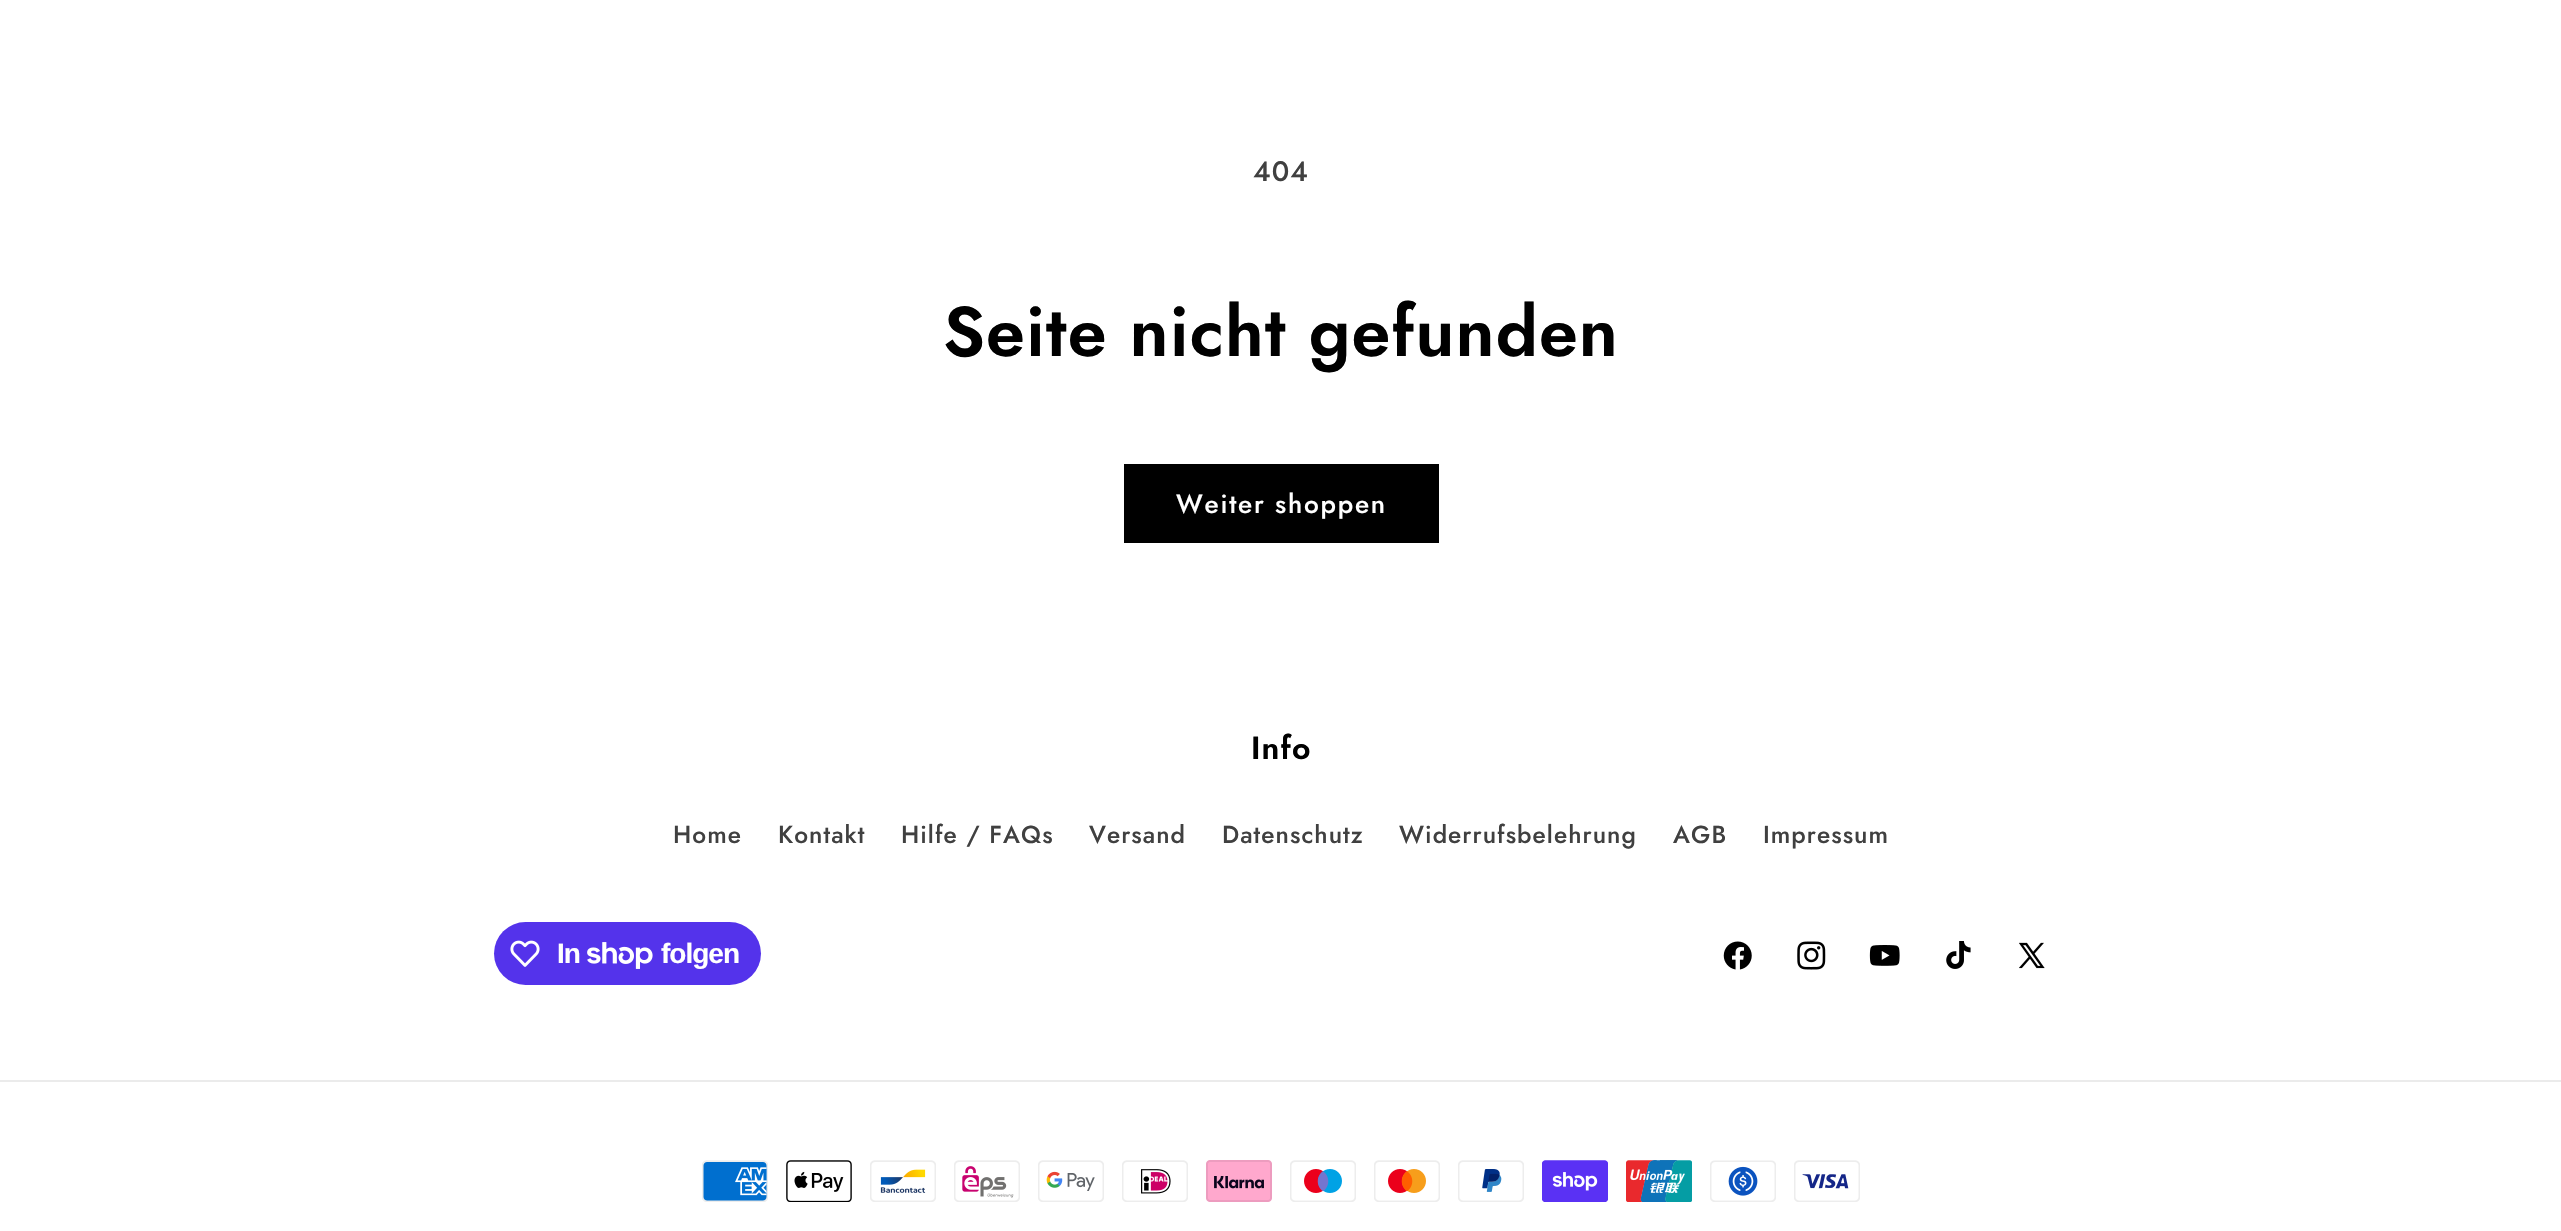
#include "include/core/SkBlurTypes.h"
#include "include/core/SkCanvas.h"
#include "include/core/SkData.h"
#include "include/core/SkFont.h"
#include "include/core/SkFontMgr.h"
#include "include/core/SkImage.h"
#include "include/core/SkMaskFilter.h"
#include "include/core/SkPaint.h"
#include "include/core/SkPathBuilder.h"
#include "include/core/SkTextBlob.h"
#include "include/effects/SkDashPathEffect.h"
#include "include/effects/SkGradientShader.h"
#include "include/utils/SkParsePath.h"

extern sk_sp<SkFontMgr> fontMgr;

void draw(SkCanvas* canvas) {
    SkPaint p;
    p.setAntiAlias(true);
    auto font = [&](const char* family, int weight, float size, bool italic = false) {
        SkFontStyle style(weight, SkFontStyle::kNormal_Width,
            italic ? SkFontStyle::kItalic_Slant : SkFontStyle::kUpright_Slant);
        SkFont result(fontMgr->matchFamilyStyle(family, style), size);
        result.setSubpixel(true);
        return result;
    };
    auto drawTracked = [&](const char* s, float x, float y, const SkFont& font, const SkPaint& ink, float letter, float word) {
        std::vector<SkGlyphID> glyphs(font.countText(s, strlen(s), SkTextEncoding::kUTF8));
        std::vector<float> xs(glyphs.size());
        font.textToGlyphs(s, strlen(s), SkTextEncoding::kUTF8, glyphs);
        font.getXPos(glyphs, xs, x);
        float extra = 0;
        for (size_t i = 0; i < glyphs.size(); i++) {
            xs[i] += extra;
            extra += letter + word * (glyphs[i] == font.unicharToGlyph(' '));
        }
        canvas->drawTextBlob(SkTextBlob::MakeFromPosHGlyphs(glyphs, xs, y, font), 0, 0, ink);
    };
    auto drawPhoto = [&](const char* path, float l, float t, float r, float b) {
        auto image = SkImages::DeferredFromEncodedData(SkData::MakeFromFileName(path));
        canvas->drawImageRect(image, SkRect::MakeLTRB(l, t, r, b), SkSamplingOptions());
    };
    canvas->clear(0xFFFFFFFF);
    auto font1 = font("Jost", 500, 28);
    p.setColor(0xFF404040);
    drawTracked("404", 1253, 181, font1, p, 1.05f, 0);
    auto font2 = font("Jost", 600, 70);
    p.setColor(0xFF000000);
    drawTracked("Seite nicht gefunden", 943, 356, font2, p, 1.05f, 0);
    canvas->drawRect(SkRect::MakeLTRB(1124, 464, 1439, 543), p);
    auto font3 = font("Jost", 500, 26.25f);
    p.setColor(0xFFFFFFFF);
    drawTracked("Weiter shoppen", 1176, 513, font3, p, 1.75f, 0);
    auto font4 = font("Jost", 600, 32);
    p.setColor(0xFF000000);
    drawTracked("Info", 1251, 759, font4, p, 1.05f, 0);
    auto font5 = font("Jost", 500, 24.5f);
    p.setColor(0xFF404040);
    {
        const struct { const char* s; float x, y; } items[] = {
            {"Home", 673, 843},
            {"Kontakt", 778, 843},
            {"Hilfe / FAQs", 901, 843},
            {"Versand", 1089, 843},
            {"Datenschutz", 1222, 843},
            {"Widerrufsbelehrung", 1399, 843},
            {"AGB", 1673, 843},
            {"Impressum", 1763, 843},
        };
        for (auto [s, x, y] : items) {
            drawTracked(s, x, y, font5, p, 1.05f, 0);
        }
    }
    p.setColor(0xFF5433EB);
    canvas->drawRoundRect(SkRect::MakeLTRB(494, 922, 761, 985), 31.5f, 31.5f, p);
    drawPhoto("media/1.png", 510, 940, 540, 967);
    auto font6 = font("Liberation Sans", 700, 28);
    p.setColor(0xFFFFFFFF);
    drawTracked("In", 557, 963, font6, p, -1, 0);
    drawPhoto("media/2.png", 587, 942, 653, 969);
    drawTracked("folgen", 661, 963, font6, p, -1, 0);
    drawPhoto("media/3.png", 1723, 941, 1752, 970);
    drawPhoto("media/4.png", 1797, 941, 1826, 970);
    drawPhoto("media/5.png", 1869, 945, 1900, 966);
    drawPhoto("media/6.png", 1946, 941, 1971, 969);
    drawPhoto("media/7.png", 2019, 942, 2045, 969);
    p.setColor(0xFFEBEBEB);
    canvas->drawRect(SkRect::MakeLTRB(0, 1080, 2561, 1082), p);
    drawPhoto("media/8.png", 702, 1160, 768, 1202);
    drawPhoto("media/9.png", 786, 1160, 852, 1202);
    drawPhoto("media/10.png", 870, 1160, 936, 1202);
    drawPhoto("media/11.png", 954, 1160, 1020, 1202);
    drawPhoto("media/12.png", 1038, 1160, 1104, 1202);
    drawPhoto("media/13.png", 1122, 1160, 1188, 1202);
    drawPhoto("media/14.png", 1206, 1160, 1272, 1202);
    drawPhoto("media/15.png", 1290, 1160, 1356, 1202);
    drawPhoto("media/16.png", 1374, 1160, 1440, 1202);
    drawPhoto("media/17.png", 1458, 1160, 1524, 1202);
    drawPhoto("media/18.png", 1542, 1160, 1608, 1202);
    drawPhoto("media/19.png", 1626, 1160, 1692, 1202);
    drawPhoto("media/20.png", 1710, 1160, 1776, 1202);
    drawPhoto("media/21.png", 1794, 1160, 1860, 1202);
}
